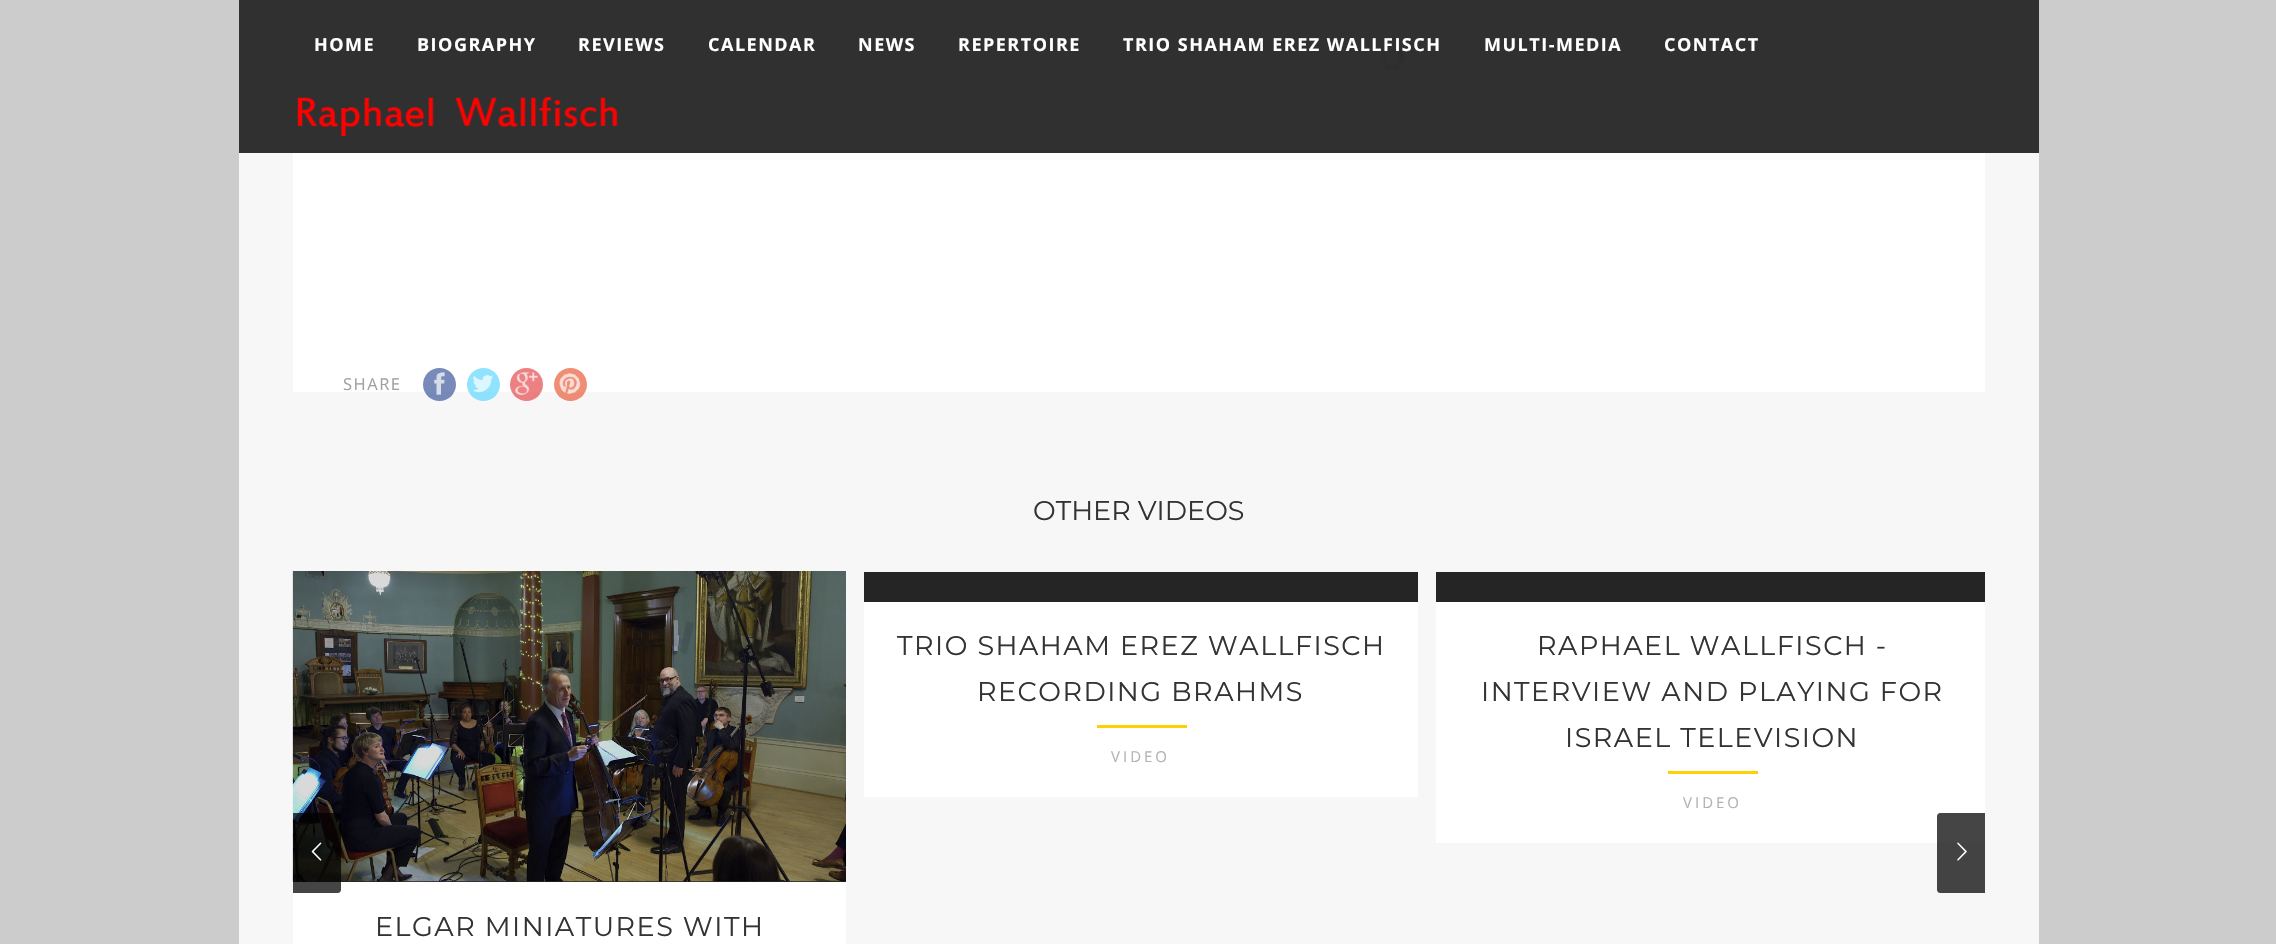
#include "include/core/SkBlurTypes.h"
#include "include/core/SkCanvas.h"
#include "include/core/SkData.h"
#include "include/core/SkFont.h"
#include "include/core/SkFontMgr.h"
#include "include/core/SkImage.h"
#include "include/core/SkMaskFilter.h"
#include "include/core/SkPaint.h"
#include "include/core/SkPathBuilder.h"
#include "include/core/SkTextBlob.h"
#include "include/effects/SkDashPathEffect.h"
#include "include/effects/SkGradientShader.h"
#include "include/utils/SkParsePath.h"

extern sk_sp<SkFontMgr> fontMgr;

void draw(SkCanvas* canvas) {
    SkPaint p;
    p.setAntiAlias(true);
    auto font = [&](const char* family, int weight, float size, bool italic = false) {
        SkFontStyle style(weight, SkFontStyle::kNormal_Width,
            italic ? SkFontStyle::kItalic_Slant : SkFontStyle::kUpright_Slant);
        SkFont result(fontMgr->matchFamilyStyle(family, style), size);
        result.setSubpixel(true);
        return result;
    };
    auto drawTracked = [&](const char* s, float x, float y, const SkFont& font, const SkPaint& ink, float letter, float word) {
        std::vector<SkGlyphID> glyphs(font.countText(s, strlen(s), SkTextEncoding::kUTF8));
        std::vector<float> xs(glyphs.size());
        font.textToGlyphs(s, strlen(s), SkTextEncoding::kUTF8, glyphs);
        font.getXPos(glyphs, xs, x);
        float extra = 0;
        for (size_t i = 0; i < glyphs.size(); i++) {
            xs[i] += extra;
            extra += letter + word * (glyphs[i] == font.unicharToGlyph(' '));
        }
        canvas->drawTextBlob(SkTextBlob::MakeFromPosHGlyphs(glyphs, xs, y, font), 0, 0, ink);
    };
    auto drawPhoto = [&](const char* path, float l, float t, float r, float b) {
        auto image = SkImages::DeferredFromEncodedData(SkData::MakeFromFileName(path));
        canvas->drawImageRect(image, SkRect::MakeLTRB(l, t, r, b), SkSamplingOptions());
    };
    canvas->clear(0xFFCCCCCC);
    p.setColor(0xFFF7F7F7);
    canvas->drawRect(SkRect::MakeLTRB(239, 153, 2039, 944), p);
    p.setColor(0xFF303030);
    canvas->drawRect(SkRect::MakeLTRB(239, 0, 2039, 153), p);
    auto font1 = font("Open Sans", 700, 18);
    p.setColor(0xFFFFFFFF);
    {
        const struct { const char* s; float x, y; } items[] = {
            {"HOME", 314, 51},
            {"BIOGRAPHY", 417, 51},
            {"REVIEWS", 578, 51},
            {"CALENDAR", 708, 51},
            {"NEWS", 858, 51},
            {"REPERTOIRE", 958, 51},
        };
        for (auto [s, x, y] : items) {
            drawTracked(s, x, y, font1, p, 1.5f, 0);
        }
    }
    drawPhoto("media/2.png", 1380, 46, 1404, 70);
    {
        const struct { const char* s; float x, y; } items[] = {
            {"TRIO SHAHAM EREZ WALLFISCH", 1123, 51},
            {"MULTI-MEDIA", 1484, 51},
            {"CONTACT", 1664, 51},
        };
        for (auto [s, x, y] : items) {
            drawTracked(s, x, y, font1, p, 1.5f, 0);
        }
    }
    drawPhoto("media/1.png", 297, 97, 618, 137);
    canvas->drawRect(SkRect::MakeLTRB(293, 153, 1985, 392), p);
    auto font2 = font("Open Sans", 400, 16.5f);
    p.setColor(0xFFA0A0A0);
    drawTracked("SHARE", 343, 390, font2, p, 1.5f, 0);
    p.setColor(0xB33D599B);
    canvas->drawCircle(439.5f, 384.5f, 16.5f, p);
    drawPhoto("media/3.png", 434, 372, 445, 395);
    p.setColor(0xB360D7FD);
    canvas->drawCircle(483.5f, 384.5f, 16.5f, p);
    drawPhoto("media/4.png", 472, 374, 494, 393);
    p.setColor(0xB3E54A4F);
    canvas->drawCircle(526.5f, 384.5f, 16.5f, p);
    drawPhoto("media/5.png", 515, 372, 538, 395);
    p.setColor(0xB3E85D3A);
    canvas->drawCircle(570.5f, 384.5f, 16.5f, p);
    drawPhoto("media/6.png", 559, 373, 581, 394);
    auto font3 = font("Montserrat", 400, 27);
    p.setColor(0xFF333332);
    canvas->drawString("OTHER VIDEOS", 1033, 520, font3, p);
    p.setColor(0xFF252525);
    canvas->drawRect(SkRect::MakeLTRB(293, 881, 846, 882), p);
    drawPhoto("media/8.png", 292, 571, 846, 882);
    p.setColor(0xFFFFFFFF);
    canvas->drawRect(SkRect::MakeLTRB(293, 882, 846, 944), p);
    p.setColor(0xBA000000);
    canvas->drawPath(SkPathBuilder().moveTo(293, 813).lineTo(338, 813).cubicTo(339.5f, 813, 341, 814.5f, 341, 816).lineTo(341, 890).cubicTo(341, 891.5f, 339.5f, 893, 338, 893).lineTo(293, 893).close().detach(), p);
    drawPhoto("media/7.png", 311, 842, 322, 861);
    p.setColor(0xFF252525);
    canvas->drawRect(SkRect::MakeLTRB(864, 572, 1418, 602), p);
    p.setColor(0xFFFFFFFF);
    canvas->drawRect(SkRect::MakeLTRB(864, 602, 1418, 797), p);
    p.setColor(0xFF333332);
    drawTracked("TRIO SHAHAM EREZ WALLFISCH", 897, 655, font3, p, 1.5f, 0);
    drawTracked("RECORDING BRAHMS", 977, 701, font3, p, 1.5f, 0);
    p.setColor(0xFFFDD200);
    canvas->drawRect(SkRect::MakeLTRB(1097, 725, 1187, 728), p);
    auto font4 = font("Open Sans", 400, 15);
    p.setColor(0xFFB3B3B1);
    drawTracked("VIDEO", 1111, 762, font4, p, 3, 0);
    p.setColor(0xFF333332);
    drawTracked("ELGAR MINIATURES WITH", 375, 936, font3, p, 1.5f, 0);
    p.setColor(0xFF252525);
    canvas->drawRect(SkRect::MakeLTRB(1436, 572, 1985, 602), p);
    p.setColor(0xFFFFFFFF);
    canvas->drawRect(SkRect::MakeLTRB(1436, 602, 1985, 843), p);
    p.setColor(0xFF333332);
    {
        const struct { const char* s; float x, y; } items[] = {
            {"RAPHAEL WALLFISCH -", 1537, 655},
            {"INTERVIEW AND PLAYING FOR", 1481, 701},
            {"ISRAEL TELEVISION", 1565, 747},
        };
        for (auto [s, x, y] : items) {
            drawTracked(s, x, y, font3, p, 1.5f, 0);
        }
    }
    p.setColor(0xFFFDD200);
    canvas->drawRect(SkRect::MakeLTRB(1668, 771, 1758, 774), p);
    p.setColor(0xFFB3B3B1);
    drawTracked("VIDEO", 1683, 808, font4, p, 3, 0);
    p.setColor(0xBA000000);
    canvas->drawPath(SkPathBuilder().moveTo(1940, 813).lineTo(1985, 813).lineTo(1985, 893).lineTo(1940, 893).cubicTo(1938.5f, 893, 1937, 891.5f, 1937, 890).lineTo(1937, 816).cubicTo(1937, 814.5f, 1938.5f, 813, 1940, 813).close().detach(), p);
    drawPhoto("media/9.png", 1957, 842, 1967, 861);
}
